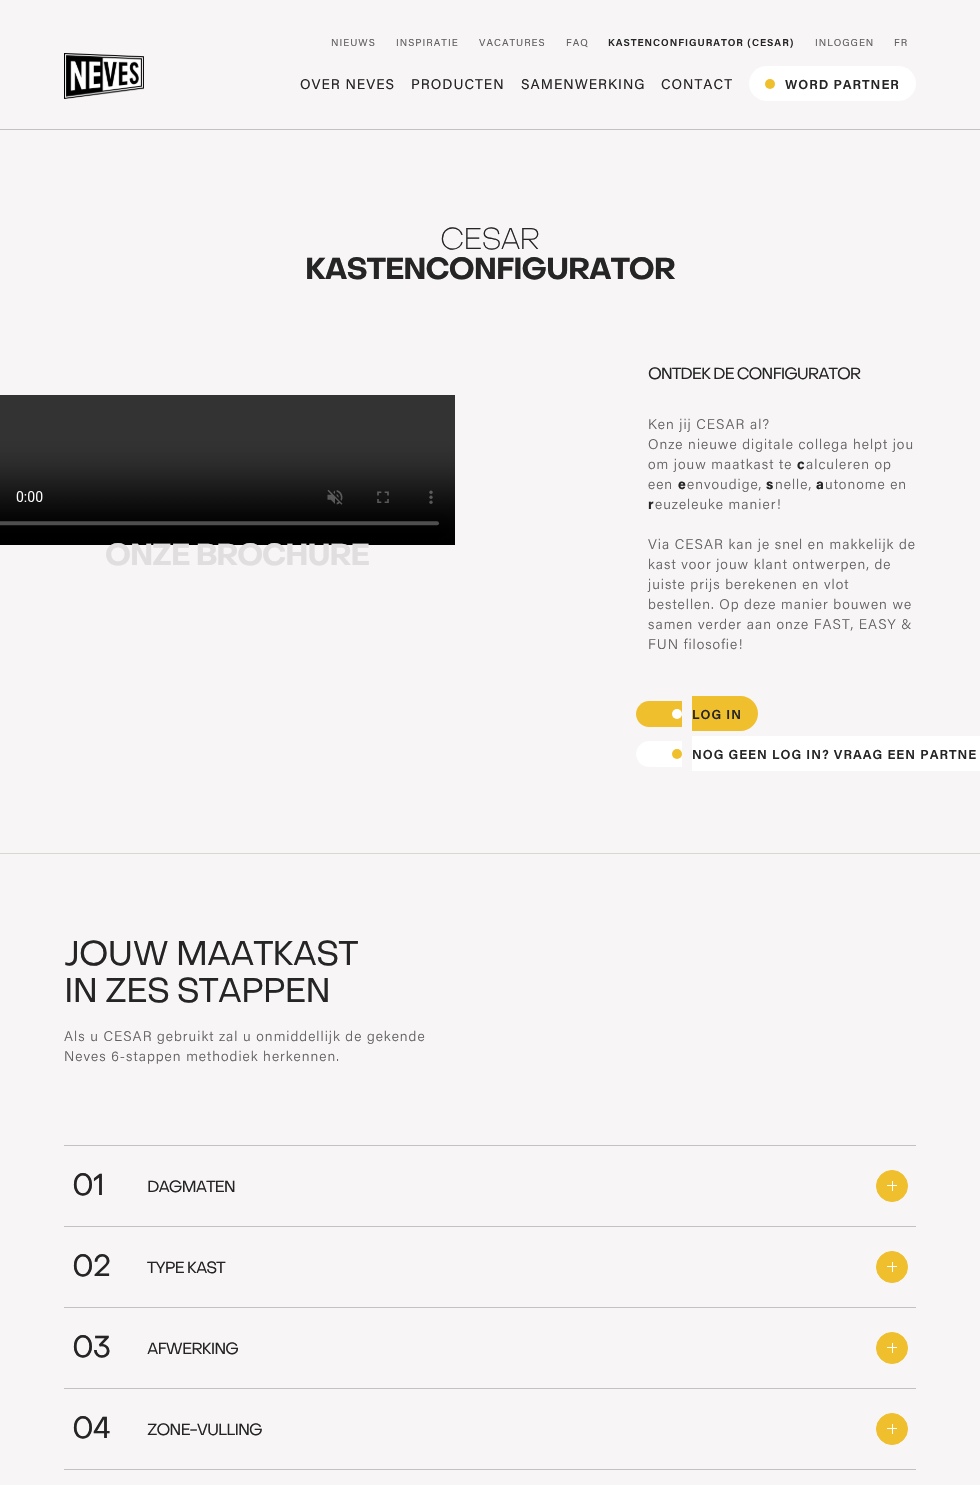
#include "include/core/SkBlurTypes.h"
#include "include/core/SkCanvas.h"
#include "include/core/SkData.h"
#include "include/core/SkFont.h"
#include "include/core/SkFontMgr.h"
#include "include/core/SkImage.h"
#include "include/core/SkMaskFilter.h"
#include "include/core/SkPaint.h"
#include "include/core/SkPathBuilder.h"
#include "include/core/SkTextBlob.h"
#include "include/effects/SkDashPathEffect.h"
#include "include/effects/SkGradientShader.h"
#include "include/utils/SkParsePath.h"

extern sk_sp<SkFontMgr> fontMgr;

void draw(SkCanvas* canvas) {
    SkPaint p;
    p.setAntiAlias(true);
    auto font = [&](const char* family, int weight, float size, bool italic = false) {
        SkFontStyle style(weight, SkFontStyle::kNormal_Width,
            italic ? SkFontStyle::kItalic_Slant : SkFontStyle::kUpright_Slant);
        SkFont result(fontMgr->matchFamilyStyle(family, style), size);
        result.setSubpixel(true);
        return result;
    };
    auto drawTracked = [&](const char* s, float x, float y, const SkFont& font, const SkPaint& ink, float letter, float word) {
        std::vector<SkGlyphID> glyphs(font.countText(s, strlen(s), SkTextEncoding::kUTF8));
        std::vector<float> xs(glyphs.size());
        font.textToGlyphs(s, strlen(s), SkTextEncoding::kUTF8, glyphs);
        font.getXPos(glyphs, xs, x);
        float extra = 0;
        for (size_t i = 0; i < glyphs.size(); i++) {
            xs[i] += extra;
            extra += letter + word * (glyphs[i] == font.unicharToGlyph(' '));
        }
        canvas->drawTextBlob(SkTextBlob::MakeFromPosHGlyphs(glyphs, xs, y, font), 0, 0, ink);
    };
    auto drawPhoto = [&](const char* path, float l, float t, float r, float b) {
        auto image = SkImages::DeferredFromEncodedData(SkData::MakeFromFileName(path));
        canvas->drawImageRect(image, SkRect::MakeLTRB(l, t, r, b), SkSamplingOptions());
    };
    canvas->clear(0xFFF7F5F5);
    p.setColor(0xFFC3C1C1);
    canvas->drawRect(SkRect::MakeLTRB(0, 129, 980, 130), p);
    drawPhoto("media/1.png", 64, 53, 144, 99);
    auto font1 = font("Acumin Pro", 400, 10);
    p.setColor(0xFF636262);
    {
        const struct { const char* s; float x, y; } items[] = {
            {"NIEUWS", 331, 46},
            {"INSPIRATIE", 396, 46},
            {"VACATURES", 479, 46},
            {"FAQ", 566, 46},
        };
        for (auto [s, x, y] : items) {
            drawTracked(s, x, y, font1, p, 1, 0);
        }
    }
    auto font2 = font("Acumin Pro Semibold", 600, 10);
    p.setColor(0xFF252525);
    drawTracked("KASTENCONFIGURATOR (CESAR)", 608, 46, font2, p, 1, 0);
    p.setColor(0xFF636262);
    drawTracked("INLOGGEN", 815, 46, font1, p, 1, 0);
    drawTracked("FR", 894, 46, font1, p, 1, 0);
    auto font3 = font("Acumin Pro", 400, 14);
    p.setColor(0xFF252525);
    {
        const struct { const char* s; float x, y; } items[] = {
            {"OVER NEVES", 300, 89},
            {"PRODUCTEN", 411, 89},
            {"SAMENWERKING", 521, 89},
            {"CONTACT", 661, 89},
        };
        for (auto [s, x, y] : items) {
            drawTracked(s, x, y, font3, p, 1, 0);
        }
    }
    p.setColor(0xFFFFFFFF);
    canvas->drawRoundRect(SkRect::MakeLTRB(749, 66, 916, 101), 17.5f, 17.5f, p);
    p.setColor(0xFFEFBF2D);
    canvas->drawCircle(770, 84, 5, p);
    auto font4 = font("Acumin Pro Semibold", 600, 13);
    p.setColor(0xFF252525);
    drawTracked("WORD PARTNER", 785, 89, font4, p, 1, 0);
    auto font5 = font("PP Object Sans", 100, 30);
    drawTracked("CESAR", 440, 249, font5, p, -1, 0);
    auto font6 = font("PP Object Sans", 700, 30);
    drawTracked("KASTENCONFIGURATOR", 305, 279, font6, p, -1, 0);
    drawPhoto("media/2.png", 0, 395, 455, 545);
    auto font7 = font("PP Object Sans", 400, 16);
    drawTracked("ONTDEK DE CONFIGURATOR", 648, 379, font7, p, -1, 0);
    auto font8 = font("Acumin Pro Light", 300, 14);
    p.setColor(0xFF636262);
    {
        const struct { const char* s; float x, y; } items[] = {
            {"Ken jij CESAR al?", 648, 429},
            {"Onze nieuwe digitale collega helpt jou", 648, 449},
            {"om jouw maatkast te", 648, 469},
        };
        for (auto [s, x, y] : items) {
            drawTracked(s, x, y, font8, p, 1, 0);
        }
    }
    auto font9 = font("Acumin Pro", 700, 14);
    p.setColor(0xFF252525);
    drawTracked("c", 797, 469, font9, p, 1, 0);
    p.setColor(0xFF636262);
    drawTracked("alculeren op", 806, 469, font8, p, 1, 0);
    drawTracked("een", 648, 489, font8, p, 1, 0);
    p.setColor(0xFF252525);
    drawTracked("e", 678, 489, font9, p, 1, 0);
    p.setColor(0xFF636262);
    drawTracked("envoudige,", 687, 489, font8, p, 1, 0);
    p.setColor(0xFF252525);
    drawTracked("s", 766, 489, font9, p, 1, 0);
    p.setColor(0xFF636262);
    drawTracked("nelle,", 775, 489, font8, p, 1, 0);
    p.setColor(0xFF252525);
    drawTracked("a", 816, 489, font9, p, 1, 0);
    p.setColor(0xFF636262);
    drawTracked("utonome en", 825, 489, font8, p, 1, 0);
    p.setColor(0xFF252525);
    drawTracked("r", 648, 509, font9, p, 1, 0);
    p.setColor(0xFF636262);
    {
        const struct { const char* s; float x, y; } items[] = {
            {"euzeleuke manier!", 655, 509},
            {"Via CESAR kan je snel en makkelijk de", 648, 549},
            {"kast voor jouw klant ontwerpen, de", 648, 569},
            {"juiste prijs berekenen en vlot", 648, 589},
            {"bestellen. Op deze manier bouwen we", 648, 609},
            {"samen verder aan onze FAST, EASY &", 648, 629},
            {"FUN filosofie!", 648, 649},
        };
        for (auto [s, x, y] : items) {
            drawTracked(s, x, y, font8, p, 1, 0);
        }
    }
    p.setColor(0xFFEFBF2D);
    canvas->drawPath(SkPathBuilder().moveTo(649, 701).lineTo(682, 701).lineTo(682, 727).lineTo(649, 727).cubicTo(642, 727, 636, 721, 636, 714).cubicTo(636, 707, 642, 701, 649, 701).close().detach(), p);
    canvas->drawPath(SkPathBuilder().moveTo(692, 696).lineTo(740.5f, 696).cubicTo(750, 696, 758, 704, 758, 713.5f).cubicTo(758, 723, 750, 731, 740.5f, 731).lineTo(692, 731).close().detach(), p);
    p.setColor(0xFFFFFFFF);
    canvas->drawCircle(677, 714, 5, p);
    p.setColor(0xFF252525);
    drawTracked("LOG IN", 692, 719, font4, p, 1, 0);
    p.setColor(0xFFFFFFFF);
    canvas->drawPath(SkPathBuilder().moveTo(649, 741).lineTo(682, 741).lineTo(682, 767).lineTo(649, 767).cubicTo(642, 767, 636, 761, 636, 754).cubicTo(636, 747, 642, 741, 649, 741).close().detach(), p);
    canvas->drawRect(SkRect::MakeLTRB(692, 736, 980, 771), p);
    p.setColor(0xFFEFBF2D);
    canvas->drawCircle(677, 754, 5, p);
    p.setColor(0xFF252525);
    drawTracked("NOG GEEN LOG IN? VRAAG EEN PARTNE", 692, 759, font4, p, 1, 0);
    p.setColor(0xFFDAD8CC);
    canvas->drawRect(SkRect::MakeLTRB(0, 853, 980, 854), p);
    auto font10 = font("PP Object Sans", 400, 34);
    p.setColor(0xFF252525);
    drawTracked("JOUW MAATKAST", 64, 965, font10, p, -1, 0);
    drawTracked("IN ZES STAPPEN", 64, 1002, font10, p, -1, 0);
    p.setColor(0xFF636262);
    drawTracked("Als u CESAR gebruikt zal u onmiddellijk de gekende", 64, 1041, font8, p, 1, 0);
    drawTracked("Neves 6-stappen methodiek herkennen.", 64, 1061, font8, p, 1, 0);
    p.setColor(0xFFC3C1C1);
    canvas->drawRect(SkRect::MakeLTRB(64, 1145, 916, 1146), p);
    auto font11 = font("PP Object Sans", 400, 30);
    p.setColor(0xFF252525);
    drawTracked("01", 72, 1195, font11, p, -1, 0);
    drawTracked("DAGMATEN", 147, 1192, font7, p, -1, 0);
    p.setColor(0xFFEFBF2D);
    canvas->drawCircle(892, 1186, 15.5f, p);
    p.setStyle(SkPaint::kStroke_Style);
    p.setStrokeWidth(1);
    canvas->drawCircle(892, 1186, 15.5f, p);
    p.setStyle(SkPaint::kFill_Style);
    {
        const struct { float l, t, r, b; SkColor color; } items[] = {
            {887, 1185, 897, 1186, 0xFFFFFFFF},
            {892, 1181, 893, 1191, 0xFFFFFFFF},
            {64, 1226, 916, 1227, 0xFFC3C1C1},
        };
        for (auto [l, t, r, b, color] : items) {
            p.setColor(color);
            canvas->drawRect(SkRect::MakeLTRB(l, t, r, b), p);
        }
    }
    p.setColor(0xFF252525);
    drawTracked("02", 72, 1276, font11, p, -1, 0);
    drawTracked("TYPE KAST", 147, 1273, font7, p, -1, 0);
    p.setColor(0xFFEFBF2D);
    canvas->drawCircle(892, 1267, 15.5f, p);
    p.setStyle(SkPaint::kStroke_Style);
    canvas->drawCircle(892, 1267, 15.5f, p);
    p.setStyle(SkPaint::kFill_Style);
    {
        const struct { float l, t, r, b; SkColor color; } items[] = {
            {887, 1266, 897, 1267, 0xFFFFFFFF},
            {892, 1262, 893, 1272, 0xFFFFFFFF},
            {64, 1307, 916, 1308, 0xFFC3C1C1},
        };
        for (auto [l, t, r, b, color] : items) {
            p.setColor(color);
            canvas->drawRect(SkRect::MakeLTRB(l, t, r, b), p);
        }
    }
    p.setColor(0xFF252525);
    drawTracked("03", 72, 1357, font11, p, -1, 0);
    drawTracked("AFWERKING", 147, 1354, font7, p, -1, 0);
    p.setColor(0xFFEFBF2D);
    canvas->drawCircle(892, 1348, 15.5f, p);
    p.setStyle(SkPaint::kStroke_Style);
    canvas->drawCircle(892, 1348, 15.5f, p);
    p.setStyle(SkPaint::kFill_Style);
    {
        const struct { float l, t, r, b; SkColor color; } items[] = {
            {887, 1347, 897, 1348, 0xFFFFFFFF},
            {892, 1343, 893, 1353, 0xFFFFFFFF},
            {64, 1388, 916, 1389, 0xFFC3C1C1},
        };
        for (auto [l, t, r, b, color] : items) {
            p.setColor(color);
            canvas->drawRect(SkRect::MakeLTRB(l, t, r, b), p);
        }
    }
    p.setColor(0xFF252525);
    drawTracked("04", 72, 1438, font11, p, -1, 0);
    drawTracked("ZONE-VULLING", 147, 1435, font7, p, -1, 0);
    p.setColor(0xFFEFBF2D);
    canvas->drawCircle(892, 1429, 15.5f, p);
    p.setStyle(SkPaint::kStroke_Style);
    canvas->drawCircle(892, 1429, 15.5f, p);
    p.setStyle(SkPaint::kFill_Style);
    {
        const struct { float l, t, r, b; SkColor color; } items[] = {
            {887, 1428, 897, 1429, 0xFFFFFFFF},
            {892, 1424, 893, 1434, 0xFFFFFFFF},
            {64, 1469, 916, 1470, 0xFFC3C1C1},
        };
        for (auto [l, t, r, b, color] : items) {
            p.setColor(color);
            canvas->drawRect(SkRect::MakeLTRB(l, t, r, b), p);
        }
    }
    p.setColor(0xFFE0DEDE);
    drawTracked("ONZE BROCHURE", 105, 565, font6, p, -1, 0);
}
